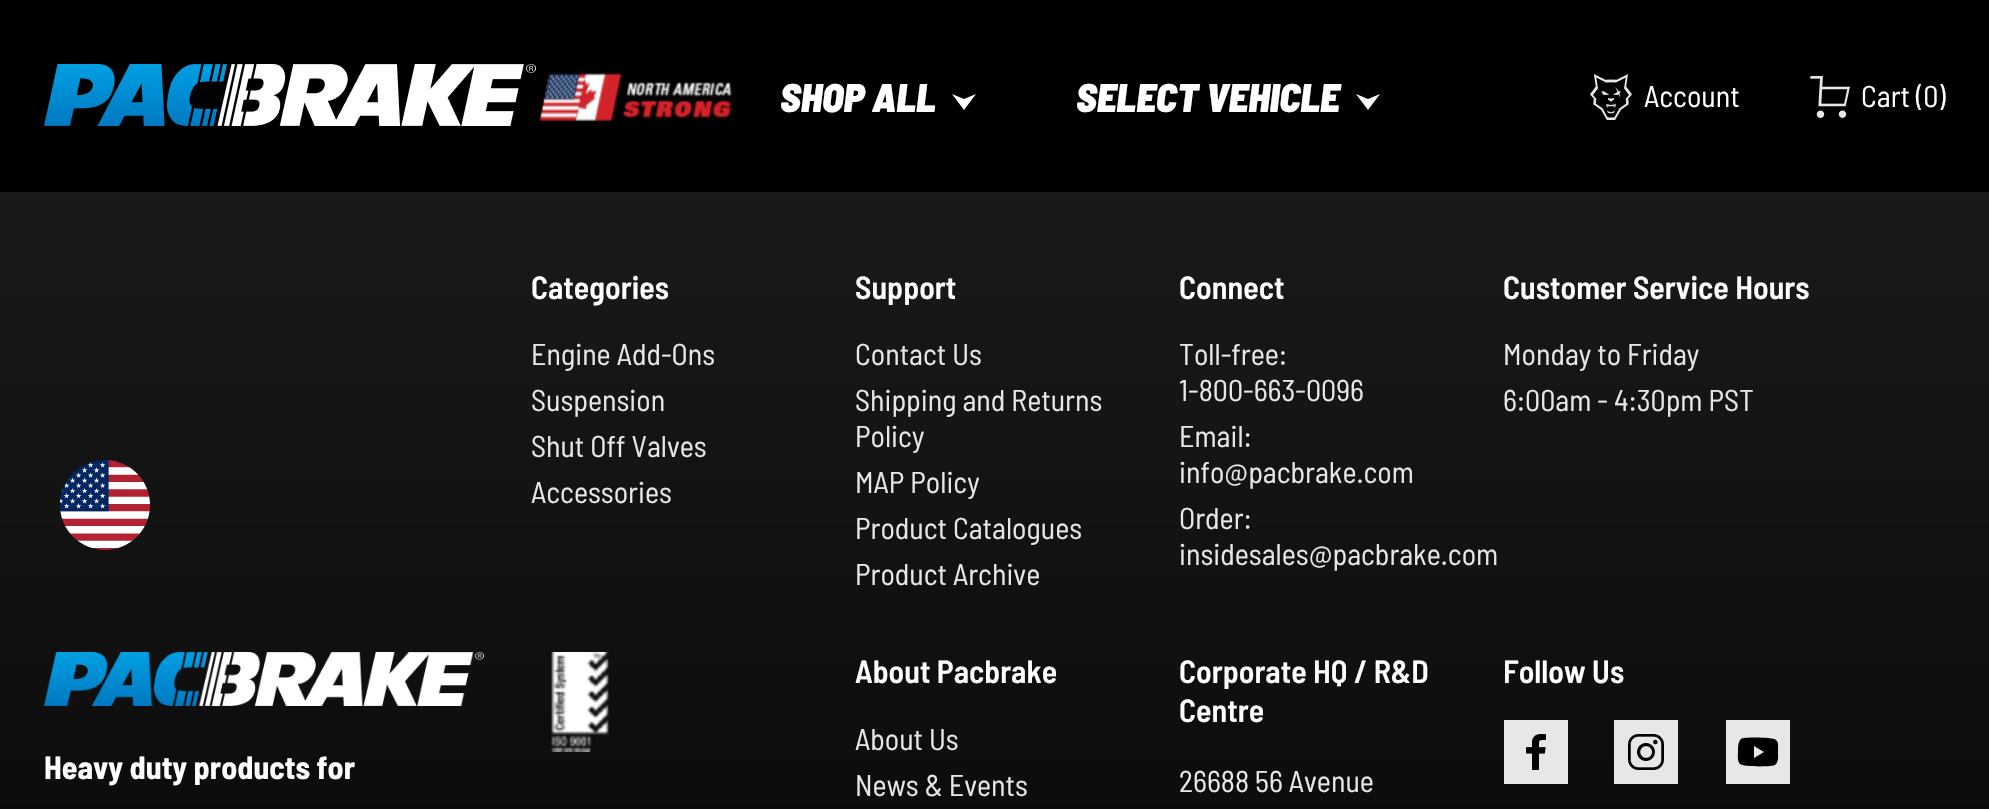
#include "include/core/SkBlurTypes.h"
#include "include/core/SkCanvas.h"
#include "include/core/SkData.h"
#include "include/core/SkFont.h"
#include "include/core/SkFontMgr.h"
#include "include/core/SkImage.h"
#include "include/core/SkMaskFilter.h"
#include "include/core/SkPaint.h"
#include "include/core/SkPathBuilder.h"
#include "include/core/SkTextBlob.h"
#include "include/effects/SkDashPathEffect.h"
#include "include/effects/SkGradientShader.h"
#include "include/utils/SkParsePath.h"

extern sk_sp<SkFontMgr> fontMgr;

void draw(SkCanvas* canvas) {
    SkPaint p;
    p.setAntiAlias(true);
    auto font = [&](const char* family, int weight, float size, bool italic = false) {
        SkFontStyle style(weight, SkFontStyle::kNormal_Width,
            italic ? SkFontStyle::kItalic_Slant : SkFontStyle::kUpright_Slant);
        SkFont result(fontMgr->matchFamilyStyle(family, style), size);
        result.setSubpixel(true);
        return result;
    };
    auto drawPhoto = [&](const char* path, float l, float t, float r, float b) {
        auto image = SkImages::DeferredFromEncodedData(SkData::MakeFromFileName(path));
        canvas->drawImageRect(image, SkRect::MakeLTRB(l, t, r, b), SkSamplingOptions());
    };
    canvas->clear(0xFFFFFFFF);
    p.setColor(0xFF000000);
    canvas->drawRect(SkRect::MakeLTRB(0, 0, 1989, 192), p);
    drawPhoto("media/1.png", 44, 64, 536, 126);
    drawPhoto("media/2.png", 539, 73, 732, 122);
    auto font1 = font("Barlow Semi Condensed", 900, 40, true);
    p.setColor(0xFFFFFFFF);
    canvas->drawString("SHOP ALL", 780, 112, font1, p);
    canvas->drawPath(SkPathBuilder().moveTo(976, 94).lineTo(964, 99).lineTo(952, 94).lineTo(964, 110).close().detach(), p);
    canvas->drawString("SELECT VEHICLE", 1076, 112, font1, p);
    canvas->drawPath(SkPathBuilder().moveTo(1380, 94).lineTo(1368, 99).lineTo(1356, 94).lineTo(1368, 110).close().detach(), p);
    drawPhoto("media/3.png", 1590, 74, 1632, 120);
    auto font2 = font("Barlow Semi Condensed", 400, 30);
    canvas->drawString("Account", 1644, 107, font2, p);
    drawPhoto("media/4.png", 1810, 76, 1850, 118);
    canvas->drawString("Cart (0)", 1861, 107, font2, p);
    {
        const SkColor colors[] = {0xFF212121, 0xFF000000};
        const float stops[] = {0, 1};
        const SkPoint ends[] = {{995, -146}, {995, 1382}};
        p.setShader(SkGradientShader::MakeLinear(ends, colors, stops, 2, SkTileMode::kClamp));
        p.setAlpha(255);
    }
    canvas->drawRect(SkRect::MakeLTRB(0, 192, 1989, 809), p);
    drawPhoto("media/5.png", 44, 652, 484, 706);
    auto font3 = font("Barlow Semi Condensed", 700, 32);
    p.setShader(nullptr);
    p.setColor(0xFFFFFFFF);
    canvas->drawString("Heavy duty products for", 44, 779, font3, p);
    auto font4 = font("Barlow Semi Condensed", 600, 32);
    canvas->drawString("Categories", 531, 299, font4, p);
    p.setColor(0xFFE6E7E8);
    {
        const struct { const char* s; float x, y; } items[] = {
            {"Engine Add-Ons", 531, 365},
            {"Suspension", 531, 411},
            {"Shut Off Valves", 531, 457},
            {"Accessories", 531, 503},
        };
        for (auto [s, x, y] : items) {
            canvas->drawString(s, x, y, font2, p);
        }
    }
    p.setColor(0xFFFFFFFF);
    canvas->drawString("Support", 855, 299, font4, p);
    p.setColor(0xFFE6E7E8);
    {
        const struct { const char* s; float x, y; } items[] = {
            {"Contact Us", 855, 365},
            {"Shipping and Returns", 855, 411},
            {"Policy", 855, 447},
            {"MAP Policy", 855, 493},
            {"Product Catalogues", 855, 539},
            {"Product Archive", 855, 585},
        };
        for (auto [s, x, y] : items) {
            canvas->drawString(s, x, y, font2, p);
        }
    }
    p.setColor(0xFFFFFFFF);
    canvas->drawString("Connect", 1179, 299, font4, p);
    p.setColor(0xFFE6E7E8);
    {
        const struct { const char* s; float x, y; } items[] = {
            {"Toll-free:", 1179, 365},
            {"1-800-663-0096", 1179, 401},
            {"Email:", 1179, 447},
            {"info@pacbrake.com", 1179, 483},
            {"Order:", 1179, 529},
            {"insidesales@pacbrake.com", 1179, 565},
        };
        for (auto [s, x, y] : items) {
            canvas->drawString(s, x, y, font2, p);
        }
    }
    p.setColor(0xFFFFFFFF);
    canvas->drawString("Customer Service Hours", 1503, 299, font4, p);
    p.setColor(0xFFE6E7E8);
    canvas->drawString("Monday to Friday", 1503, 365, font2, p);
    canvas->drawString("6:00am - 4:30pm PST", 1503, 411, font2, p);
    drawPhoto("media/6.png", 551, 652, 609, 752);
    p.setColor(0xFFFFFFFF);
    canvas->drawString("About Pacbrake", 855, 683, font4, p);
    p.setColor(0xFFE6E7E8);
    canvas->drawString("About Us", 855, 750, font2, p);
    canvas->drawString("News & Events", 855, 796, font2, p);
    p.setColor(0xFFFFFFFF);
    canvas->drawString("Corporate HQ / R&D", 1179, 683, font4, p);
    canvas->drawString("Centre", 1179, 722, font4, p);
    p.setColor(0xFFE6E7E8);
    canvas->drawString("26688 56 Avenue", 1179, 792, font2, p);
    p.setColor(0xFFFFFFFF);
    canvas->drawString("Follow Us", 1503, 683, font4, p);
    drawPhoto("media/7.png", 1504, 720, 1568, 784);
    drawPhoto("media/8.png", 1614, 720, 1678, 784);
    p.setColor(0xFFE6E7E8);
    canvas->drawRect(SkRect::MakeLTRB(1726, 720, 1790, 784), p);
    p.setColor(0xFF000000);
    canvas->drawPath(SkPathBuilder().moveTo(1776, 740).cubicTo(1773, 737, 1743, 737, 1741, 739).cubicTo(1738, 742, 1738, 747, 1738, 751).cubicTo(1738, 755, 1737, 761, 1740, 764).cubicTo(1742, 767, 1773, 767, 1775, 765).cubicTo(1779, 762, 1778, 756, 1778, 752).cubicTo(1778, 748, 1779, 742, 1776, 740).close().moveTo(1754, 758).lineTo(1754, 746).lineTo(1764, 752).close().detach(), p);
    drawPhoto("media/9.png", 60, 460, 150, 550);
}
